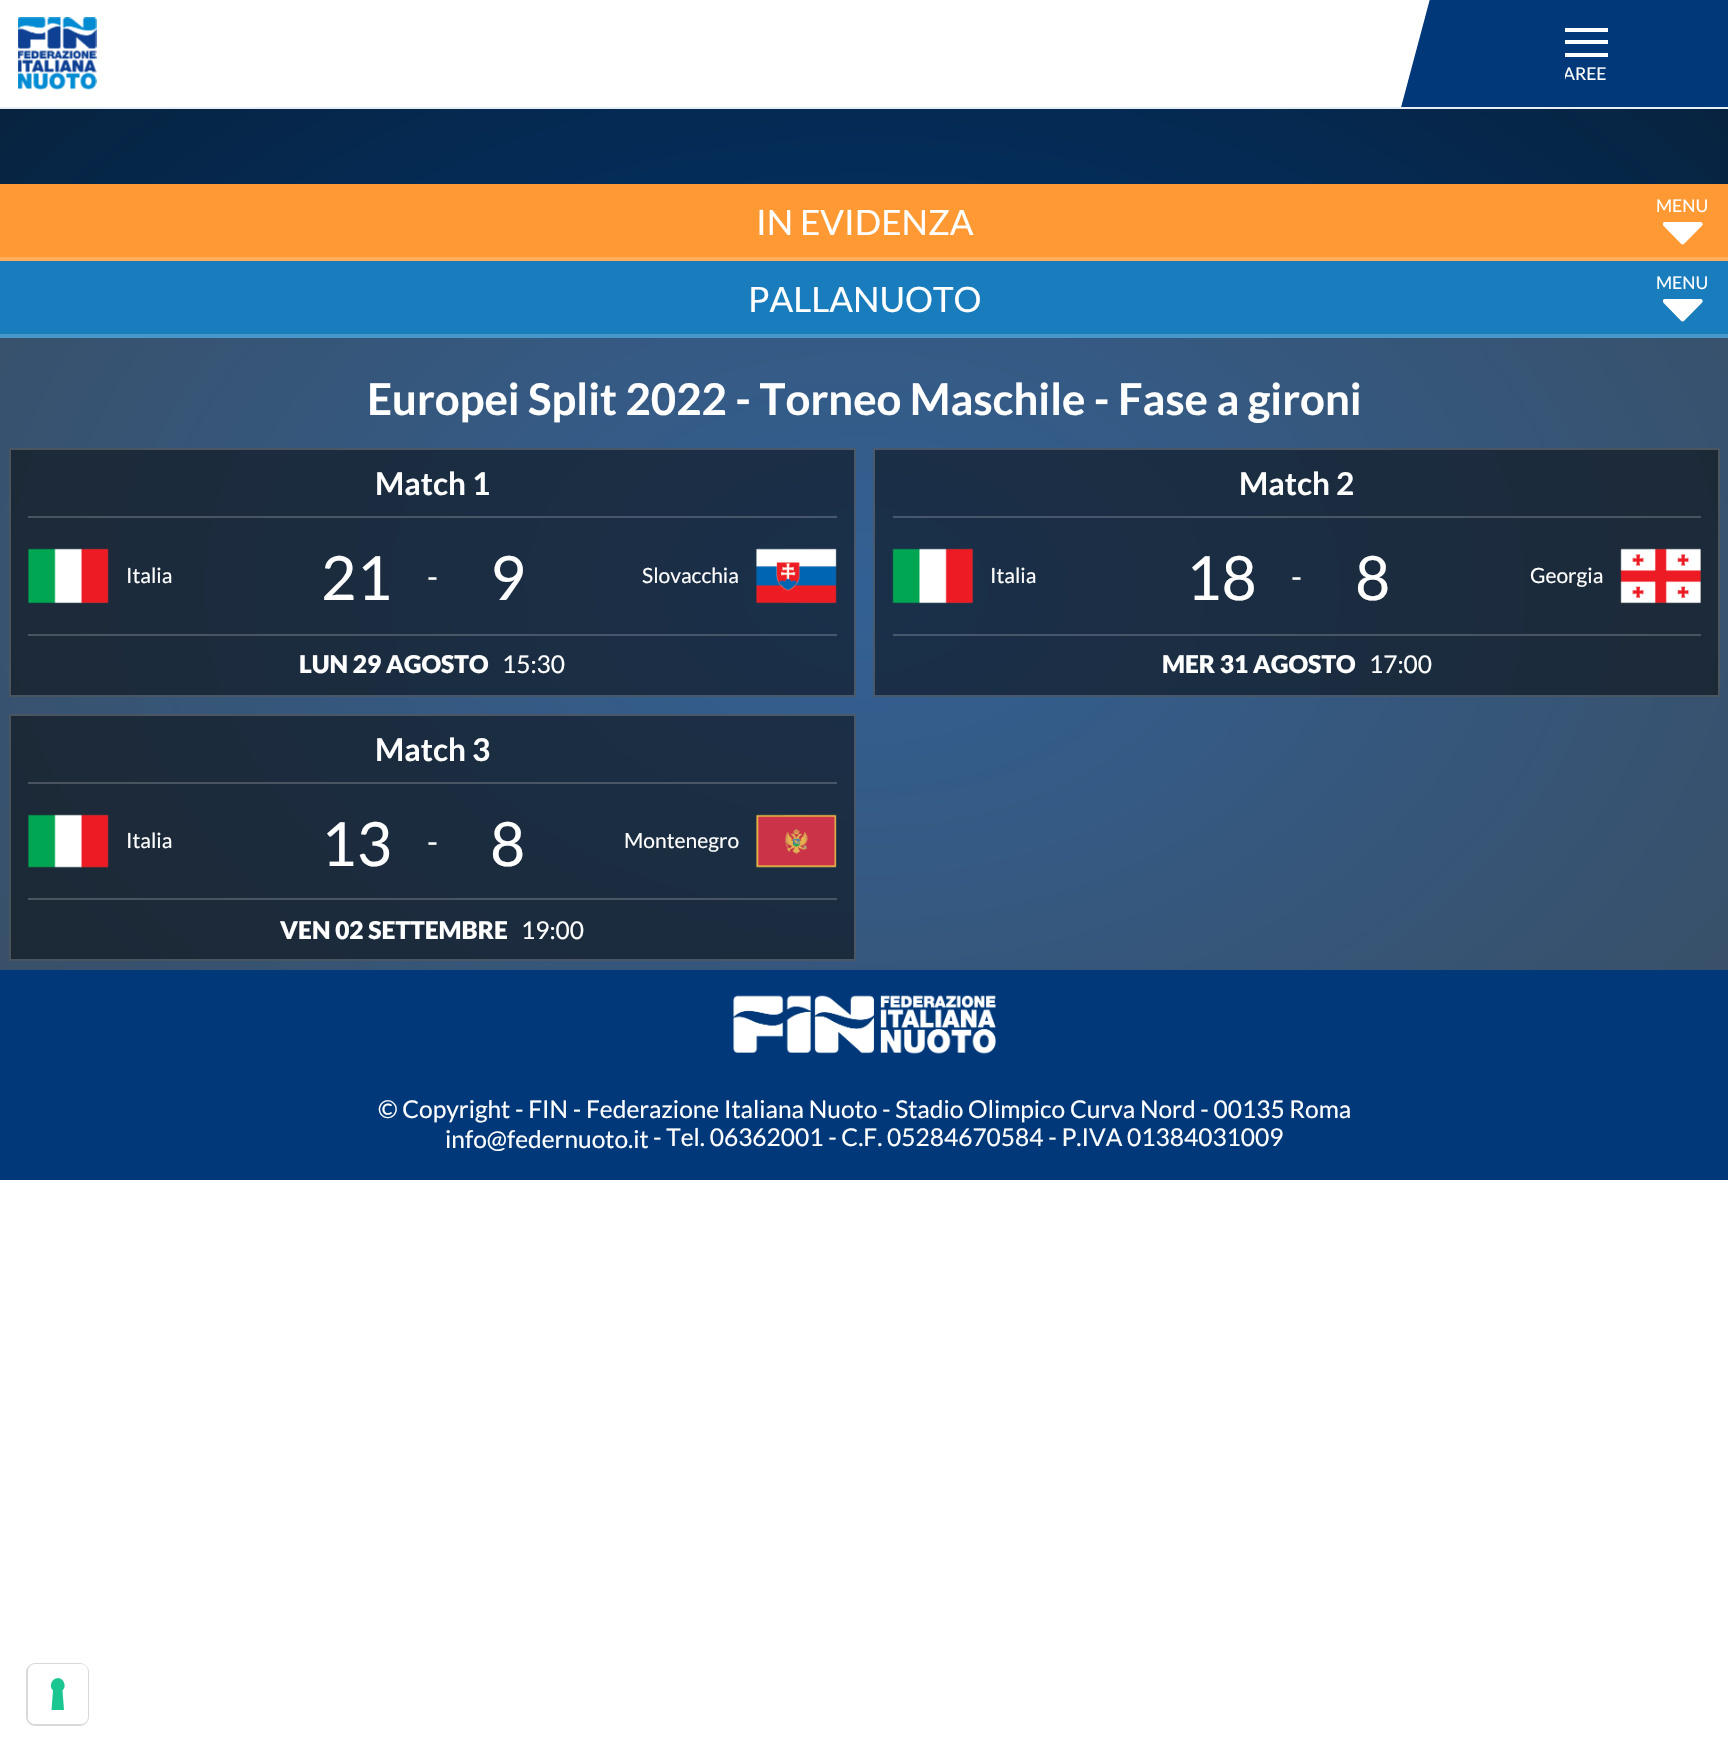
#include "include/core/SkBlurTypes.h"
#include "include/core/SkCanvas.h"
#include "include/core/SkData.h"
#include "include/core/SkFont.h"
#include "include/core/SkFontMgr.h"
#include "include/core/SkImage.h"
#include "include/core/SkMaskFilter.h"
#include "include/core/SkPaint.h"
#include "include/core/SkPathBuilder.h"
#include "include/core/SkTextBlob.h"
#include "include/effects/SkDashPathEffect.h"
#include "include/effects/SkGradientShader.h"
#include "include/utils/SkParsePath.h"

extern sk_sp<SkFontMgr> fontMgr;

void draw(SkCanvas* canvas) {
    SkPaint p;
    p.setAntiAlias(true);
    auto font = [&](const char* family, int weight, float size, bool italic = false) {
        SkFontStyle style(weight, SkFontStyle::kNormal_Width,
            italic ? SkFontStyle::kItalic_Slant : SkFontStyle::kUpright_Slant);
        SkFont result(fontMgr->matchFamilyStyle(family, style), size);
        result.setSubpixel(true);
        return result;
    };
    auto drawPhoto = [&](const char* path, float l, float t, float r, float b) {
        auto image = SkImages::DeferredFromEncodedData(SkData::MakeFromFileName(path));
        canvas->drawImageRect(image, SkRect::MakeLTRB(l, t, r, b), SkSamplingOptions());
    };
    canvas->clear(0xFFFFFFFF);
    {
        const SkColor colors[] = {0xFF003879, 0xFF08213A};
        const float stops[] = {0, 1};
        SkMatrix m = SkMatrix::Translate(865, 590).preScale(1223, 834);
        p.setShader(SkGradientShader::MakeRadial({0, 0}, 1, colors, stops, 2, SkTileMode::kClamp, 0, &m));
        p.setAlpha(255);
    }
    canvas->drawRect(SkRect::MakeLTRB(0, 109, 1728, 184), p);
    {
        const SkColor colors[] = {0xFF336094, 0xFF394D61};
        const float stops[] = {0, 1};
        SkMatrix m = SkMatrix::Translate(865, 590).preScale(1223, 834);
        p.setShader(SkGradientShader::MakeRadial({0, 0}, 1, colors, stops, 2, SkTileMode::kClamp, 0, &m));
        p.setAlpha(255);
    }
    canvas->drawRect(SkRect::MakeLTRB(0, 338, 1728, 970), p);
    {
        const SkColor colors[] = {0xFF1A304A, 0xFF1D2731};
        const float stops[] = {0, 1};
        SkMatrix m = SkMatrix::Translate(865, 590).preScale(1223, 834);
        p.setShader(SkGradientShader::MakeRadial({0, 0}, 1, colors, stops, 2, SkTileMode::kClamp, 0, &m));
        p.setAlpha(255);
    }
    canvas->drawRect(SkRect::MakeLTRB(9, 714, 856, 961), p);
    {
        const SkColor colors[] = {0xFF48596E, 0xFF4A525A};
        const float stops[] = {0, 1};
        SkMatrix m = SkMatrix::Translate(865, 590).preScale(1223, 834);
        p.setShader(SkGradientShader::MakeRadial({0, 0}, 1, colors, stops, 2, SkTileMode::kClamp, 0, &m));
        p.setAlpha(255);
    }
    canvas->drawRect(SkRect::MakeLTRB(28, 898, 837, 900), p);
    canvas->drawRect(SkRect::MakeLTRB(28, 782, 837, 784), p);
    {
        const SkColor colors[] = {0xFF1A304A, 0xFF1D2731};
        const float stops[] = {0, 1};
        SkMatrix m = SkMatrix::Translate(865, 590).preScale(1223, 834);
        p.setShader(SkGradientShader::MakeRadial({0, 0}, 1, colors, stops, 2, SkTileMode::kClamp, 0, &m));
        p.setAlpha(255);
    }
    canvas->drawRect(SkRect::MakeLTRB(873, 448, 1720, 697), p);
    {
        const SkColor colors[] = {0xFF48596E, 0xFF4A525A};
        const float stops[] = {0, 1};
        SkMatrix m = SkMatrix::Translate(865, 590).preScale(1223, 834);
        p.setShader(SkGradientShader::MakeRadial({0, 0}, 1, colors, stops, 2, SkTileMode::kClamp, 0, &m));
        p.setAlpha(255);
    }
    canvas->drawRect(SkRect::MakeLTRB(893, 634, 1701, 636), p);
    canvas->drawRect(SkRect::MakeLTRB(893, 516, 1701, 518), p);
    {
        const SkColor colors[] = {0xFF1A304A, 0xFF1D2731};
        const float stops[] = {0, 1};
        SkMatrix m = SkMatrix::Translate(865, 590).preScale(1223, 834);
        p.setShader(SkGradientShader::MakeRadial({0, 0}, 1, colors, stops, 2, SkTileMode::kClamp, 0, &m));
        p.setAlpha(255);
    }
    canvas->drawRect(SkRect::MakeLTRB(9, 448, 856, 697), p);
    {
        const SkColor colors[] = {0xFF48596E, 0xFF4A525A};
        const float stops[] = {0, 1};
        SkMatrix m = SkMatrix::Translate(865, 590).preScale(1223, 834);
        p.setShader(SkGradientShader::MakeRadial({0, 0}, 1, colors, stops, 2, SkTileMode::kClamp, 0, &m));
        p.setAlpha(255);
    }
    canvas->drawRect(SkRect::MakeLTRB(28, 634, 837, 636), p);
    canvas->drawRect(SkRect::MakeLTRB(28, 516, 837, 518), p);
    p.setShader(nullptr);
    p.setColor(0xFFE4EEF4);
    canvas->drawRect(SkRect::MakeLTRB(0, 107, 1728, 109), p);
    drawPhoto("media/1.png", 18, 17, 97, 90);
    p.setColor(0xFF003879);
    canvas->drawRect(SkRect::MakeLTRB(1440, 0, 1728, 107), p);
    canvas->save();
    canvas->clipRect(SkRect::MakeLTRB(0, 0, 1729, 107));
    canvas->drawPath(SkPathBuilder().moveTo(1435, -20).lineTo(1472, -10).lineTo(1436, 125).lineTo(1399, 115).close().detach(), p);
    canvas->restore();
    {
        const struct { float l, t, r, b; SkColor color; } items[] = {
            {1565, 28, 1608, 32, 0xFFFFFFFF},
            {1565, 40, 1608, 44, 0xFFFFFFFF},
            {1565, 53, 1608, 57, 0xFFFFFFFF},
        };
        for (auto [l, t, r, b, color] : items) {
            p.setColor(color);
            canvas->drawRect(SkRect::MakeLTRB(l, t, r, b), p);
        }
    }
    canvas->save();
    canvas->clipRect(SkRect::MakeLTRB(1565, 28, 1608, 81));
    auto font1 = font("Lato", 400, 17.5f);
    canvas->drawString("AREE", 1563, 80, font1, p);
    canvas->restore();
    p.setColor(0xFFFF9933);
    canvas->drawRect(SkRect::MakeLTRB(0, 184, 1728, 257), p);
    p.setColor(0xFFFFAD5C);
    canvas->drawRect(SkRect::MakeLTRB(0, 257, 1728, 261), p);
    p.setColor(0xFFFFFFFF);
    canvas->drawString("MENU", 1656, 212, font1, p);
    auto font2 = font("Lato", 400, 35);
    canvas->drawString("IN EVIDENZA", 756, 235, font2, p);
    drawPhoto("media/2.png", 1663, 222, 1703, 245);
    p.setColor(0xFF197DBD);
    canvas->drawRect(SkRect::MakeLTRB(0, 261, 1728, 334), p);
    p.setColor(0xFF4797CA);
    canvas->drawRect(SkRect::MakeLTRB(0, 334, 1728, 338), p);
    p.setColor(0xFFFFFFFF);
    canvas->drawString("MENU", 1656, 289, font1, p);
    canvas->drawString("PALLANUOTO", 748, 312, font2, p);
    drawPhoto("media/3.png", 1663, 299, 1703, 322);
    auto font3 = font("Lato", 700, 43.75f);
    canvas->drawString("Europei Split 2022 - Torneo Maschile - Fase a gironi", 367, 415, font3, p);
    p.setStyle(SkPaint::kStroke_Style);
    p.setStrokeWidth(2);
    p.setColor(0x33FFFFFF);
    canvas->drawRect(SkRect::MakeLTRB(10, 449, 855, 696), p);
    auto font4 = font("Lato", 700, 31.5f);
    p.setStyle(SkPaint::kFill_Style);
    p.setColor(0xFFFFFFFF);
    canvas->drawString("Match 1", 375, 495, font4, p);
    drawPhoto("media/4.png", 28, 548, 109, 604);
    auto font5 = font("Lato", 400, 21);
    canvas->drawString("Italia", 126, 583, font5, p);
    auto font6 = font("Lato", 400, 61);
    canvas->drawString("21", 321, 600, font6, p);
    auto font7 = font("Lato", 400, 31.5f);
    canvas->drawString("-", 427, 588, font7, p);
    canvas->drawString("9", 490, 600, font6, p);
    canvas->drawString("Slovacchia", 642, 583, font5, p);
    drawPhoto("media/5.png", 756, 548, 837, 604);
    auto font8 = font("Lato", 900, 24.5f);
    canvas->drawString("LUN 29 AGOSTO", 299, 673, font8, p);
    auto font9 = font("Lato", 400, 24.5f);
    canvas->drawString("15:30", 502, 673, font9, p);
    p.setStyle(SkPaint::kStroke_Style);
    p.setColor(0x33FFFFFF);
    canvas->drawRect(SkRect::MakeLTRB(874, 449, 1719, 696), p);
    p.setStyle(SkPaint::kFill_Style);
    p.setColor(0xFFFFFFFF);
    canvas->drawString("Match 2", 1239, 495, font4, p);
    drawPhoto("media/6.png", 892, 548, 973, 604);
    canvas->drawString("Italia", 990, 583, font5, p);
    canvas->drawString("18", 1186, 600, font6, p);
    canvas->drawString("-", 1291, 588, font7, p);
    canvas->drawString("8", 1355, 600, font6, p);
    canvas->drawString("Georgia", 1530, 583, font5, p);
    drawPhoto("media/7.png", 1620, 548, 1701, 604);
    canvas->drawString("MER 31 AGOSTO", 1162, 673, font8, p);
    canvas->drawString("17:00", 1369, 673, font9, p);
    p.setStyle(SkPaint::kStroke_Style);
    p.setColor(0x33FFFFFF);
    canvas->drawRect(SkRect::MakeLTRB(10, 715, 855, 960), p);
    p.setStyle(SkPaint::kFill_Style);
    p.setColor(0xFFFFFFFF);
    canvas->drawString("Match 3", 375, 761, font4, p);
    drawPhoto("media/8.png", 28, 814, 109, 868);
    canvas->drawString("Italia", 126, 848, font5, p);
    canvas->drawString("13", 321, 866, font6, p);
    canvas->drawString("-", 427, 853, font7, p);
    canvas->drawString("8", 490, 866, font6, p);
    canvas->drawString("Montenegro", 624, 848, font5, p);
    drawPhoto("media/9.png", 756, 814, 837, 868);
    canvas->drawString("VEN 02 SETTEMBRE", 280, 939, font8, p);
    canvas->drawString("19:00", 521, 939, font9, p);
    p.setColor(0xFF003879);
    canvas->drawRect(SkRect::MakeLTRB(0, 970, 1728, 1180), p);
    drawPhoto("media/10.png", 733, 995, 996, 1054);
    p.setColor(0xFFFFFFFF);
    {
        const struct { const char* s; float x, y; } items[] = {
            {"© Copyright - FIN - Federazione Italiana Nuoto - Stadio Olimpico Curva Nord - 00135 Roma", 378, 1118},
            {"info@federnuoto.it", 445, 1148},
            {"- Tel. 06362001 - C.F. 05284670584 - P.IVA 01384031009", 653, 1146},
        };
        for (auto [s, x, y] : items) {
            canvas->drawString(s, x, y, font9, p);
        }
    }
    p.setStyle(SkPaint::kStroke_Style);
    p.setColor(0xFFD9D9D9);
    canvas->drawRoundRect(SkRect::MakeLTRB(27, 1664, 88, 1725), 8, 8, p);
    p.setStyle(SkPaint::kFill_Style);
    p.setColor(0xFFFFFFFF);
    canvas->drawRoundRect(SkRect::MakeLTRB(28, 1664, 88, 1724), 7, 7, p);
    p.setColor(0xFF1CC691);
    canvas->drawPath(SkPathBuilder(SkPathFillType::kEvenOdd).moveTo(58, 1678).cubicTo(64, 1678.5f, 67, 1686.5f, 62.5f, 1690.5f).lineTo(64, 1710).lineTo(51.5f, 1710).lineTo(53, 1690.5f).cubicTo(48.5f, 1686.5f, 51.5f, 1678.5f, 58, 1678).close().detach(), p);
}
